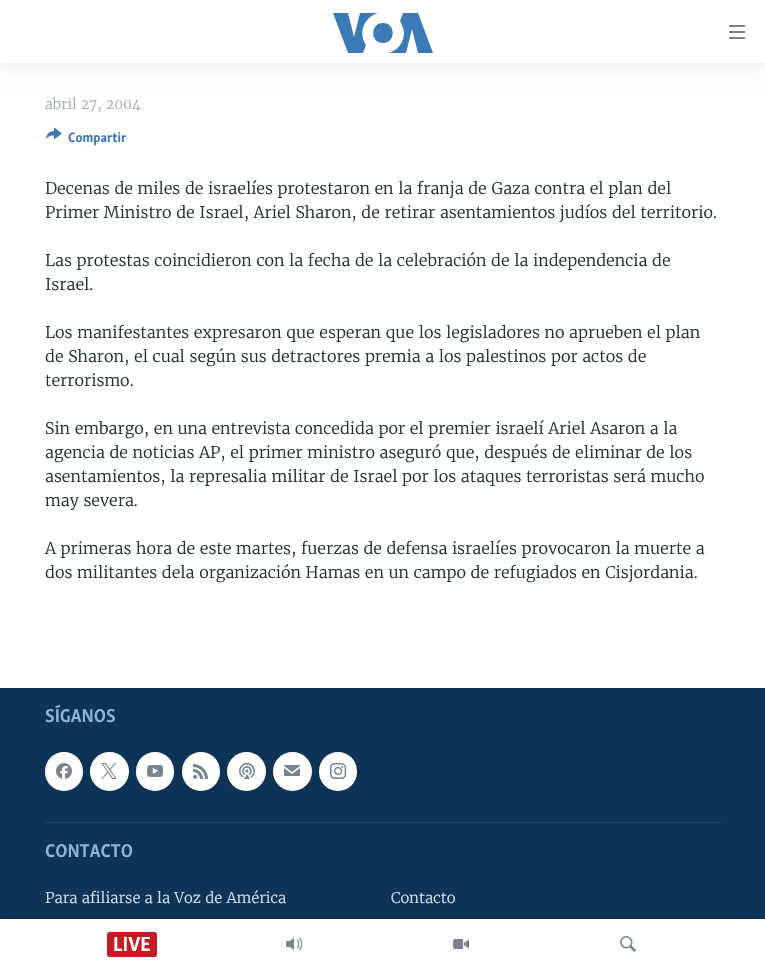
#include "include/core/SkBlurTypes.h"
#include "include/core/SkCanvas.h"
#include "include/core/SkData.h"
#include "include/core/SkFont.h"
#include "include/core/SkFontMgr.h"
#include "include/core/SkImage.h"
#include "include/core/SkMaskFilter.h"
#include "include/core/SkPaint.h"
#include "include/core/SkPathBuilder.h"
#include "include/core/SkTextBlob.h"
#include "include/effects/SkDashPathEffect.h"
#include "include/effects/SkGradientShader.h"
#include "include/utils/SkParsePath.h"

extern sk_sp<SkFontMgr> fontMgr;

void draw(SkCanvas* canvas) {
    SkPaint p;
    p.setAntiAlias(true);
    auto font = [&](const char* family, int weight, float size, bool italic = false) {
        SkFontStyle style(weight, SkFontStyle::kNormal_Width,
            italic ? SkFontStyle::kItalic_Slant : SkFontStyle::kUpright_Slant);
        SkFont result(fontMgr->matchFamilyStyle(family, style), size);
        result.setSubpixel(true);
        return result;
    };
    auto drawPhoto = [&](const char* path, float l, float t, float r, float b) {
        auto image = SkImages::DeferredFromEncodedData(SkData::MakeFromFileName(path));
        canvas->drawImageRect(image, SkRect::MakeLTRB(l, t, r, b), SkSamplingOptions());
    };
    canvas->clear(0xFFFFFFFF);
    auto font1 = font("Merriweather", 300, 14);
    p.setColor(0xFFA1AAB4);
    canvas->drawString("abril 27, 2004", 45, 109, font1, p);
    drawPhoto("media/1.png", 46, 127, 62, 140);
    auto font2 = font("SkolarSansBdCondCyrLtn", 700, 14);
    p.setColor(0xFF3A79B7);
    canvas->drawString("Compartir", 68, 142, font2, p);
    auto font3 = font("Merriweather", 300, 16);
    p.setColor(0xFF222F3A);
    {
        const struct { const char* s; float x, y; } items[] = {
            {"Decenas de miles de israelíes protestaron en la franja de Gaza contra el plan del", 45, 194},
            {"Primer Ministro de Israel, Ariel Sharon, de retirar asentamientos judíos del territorio.", 45, 218},
            {"Las protestas coincidieron con la fecha de la celebración de la independencia de", 45, 266},
            {"Israel.", 45, 290},
            {"Los manifestantes expresaron que esperan que los legisladores no aprueben el plan", 45, 338},
            {"de Sharon, el cual según sus detractores premia a los palestinos por actos de", 45, 362},
            {"terrorismo.", 45, 386},
            {"Sin embargo, en una entrevista concedida por el premier israelí Ariel Asaron a la", 45, 434},
            {"agencia de noticias AP, el primer ministro aseguró que, después de eliminar de los", 45, 458},
            {"asentamientos, la represalia militar de Israel por los ataques terroristas será mucho", 45, 482},
            {"may severa.", 45, 506},
            {"A primeras hora de este martes, fuerzas de defensa israelíes provocaron la muerte a", 45, 554},
            {"dos militantes dela organización Hamas en un campo de refugiados en Cisjordania.", 45, 578},
        };
        for (auto [s, x, y] : items) {
            canvas->drawString(s, x, y, font3, p);
        }
    }
    p.setColor(0xFF0D3456);
    canvas->drawRect(SkRect::MakeLTRB(0, 688, 765, 919), p);
    auto font4 = font("SkolarSansBdCondCyrLtn", 700, 19);
    p.setColor(0xFF8DB3D4);
    canvas->drawString("SÍGANOS", 45, 722, font4, p);
    p.setColor(0xFFFFFFFF);
    canvas->drawRoundRect(SkRect::MakeLTRB(45, 752, 83, 791), 19, 19, p);
    drawPhoto("media/2.png", 56, 763, 72, 779);
    canvas->drawCircle(109.5f, 771.5f, 19.5f, p);
    drawPhoto("media/3.png", 101, 763, 117, 779);
    canvas->drawRoundRect(SkRect::MakeLTRB(136, 752, 174, 791), 19, 19, p);
    drawPhoto("media/4.png", 147, 765, 163, 777);
    canvas->drawRoundRect(SkRect::MakeLTRB(182, 752, 220, 791), 19, 19, p);
    drawPhoto("media/5.png", 193, 764, 208, 779);
    canvas->drawCircle(246.5f, 771.5f, 19.5f, p);
    drawPhoto("media/6.png", 239, 763, 255, 779);
    canvas->drawCircle(292.5f, 771.5f, 19.5f, p);
    drawPhoto("media/7.png", 284, 765, 300, 776);
    canvas->drawRoundRect(SkRect::MakeLTRB(319, 752, 357, 791), 19, 19, p);
    drawPhoto("media/8.png", 330, 763, 347, 779);
    p.setColor(0xFF134976);
    canvas->drawRect(SkRect::MakeLTRB(45, 822, 721, 823), p);
    p.setColor(0xFF8DB3D4);
    canvas->drawString("CONTACTO", 45, 857, font4, p);
    auto font5 = font("Merriweather", 300, 14.75f);
    p.setColor(0xFFD1E1EE);
    canvas->drawString("Para afiliarse a la Voz de América", 45, 903, font5, p);
    canvas->drawString("Contacto", 391, 903, font5, p);
    p.setColor(0x1A000000);
    p.setMaskFilter(SkMaskFilter::MakeBlur(kNormal_SkBlurStyle, 10));
    canvas->drawRect(SkRect::MakeLTRB(0, 0, 765, 63), p);
    p.setMaskFilter(nullptr);
    p.setColor(0xFFFFFFFF);
    canvas->drawRect(SkRect::MakeLTRB(0, 0, 765, 63), p);
    p.setColor(0xFF3B79B7);
    canvas->drawPath(SkPathBuilder().moveTo(366, 45).lineTo(363, 53).lineTo(348, 53).lineTo(333, 13).lineTo(348, 13).lineTo(354, 37).lineTo(360, 13).lineTo(378, 13).cubicTo(364, 17, 358, 33, 366, 45).close().moveTo(383, 23).cubicTo(370, 23, 370, 43, 383, 43).cubicTo(396, 43, 396, 23, 383, 23).close().moveTo(404, 33).cubicTo(404, 43, 397, 51, 388, 53).lineTo(406, 53).lineTo(412, 29).lineTo(418, 53).lineTo(433, 53).lineTo(418, 13).lineTo(403, 13).lineTo(400, 21).cubicTo(402, 25, 404, 29, 404, 33).close().detach(), p);
    drawPhoto("media/9.png", 729, 25, 745, 39);
    p.setColor(0x1A000000);
    p.setMaskFilter(SkMaskFilter::MakeBlur(kNormal_SkBlurStyle, 10));
    canvas->drawRect(SkRect::MakeLTRB(0, 919, 765, 969), p);
    p.setMaskFilter(nullptr);
    p.setColor(0xFFFFFFFF);
    canvas->drawRect(SkRect::MakeLTRB(0, 919, 765, 969), p);
    p.setColor(0xFFC11D22);
    canvas->drawRoundRect(SkRect::MakeLTRB(107, 932, 157, 957), 3, 3, p);
    auto font6 = font("SkolarSansBdCondCyrLtn", 700, 21);
    p.setColor(0xFFFFFFFF);
    canvas->drawString("LIVE", 113, 951, font6, p);
    drawPhoto("media/10.png", 286, 937, 302, 951);
    drawPhoto("media/11.png", 453, 939, 469, 949);
    drawPhoto("media/12.png", 620, 936, 636, 952);
}
